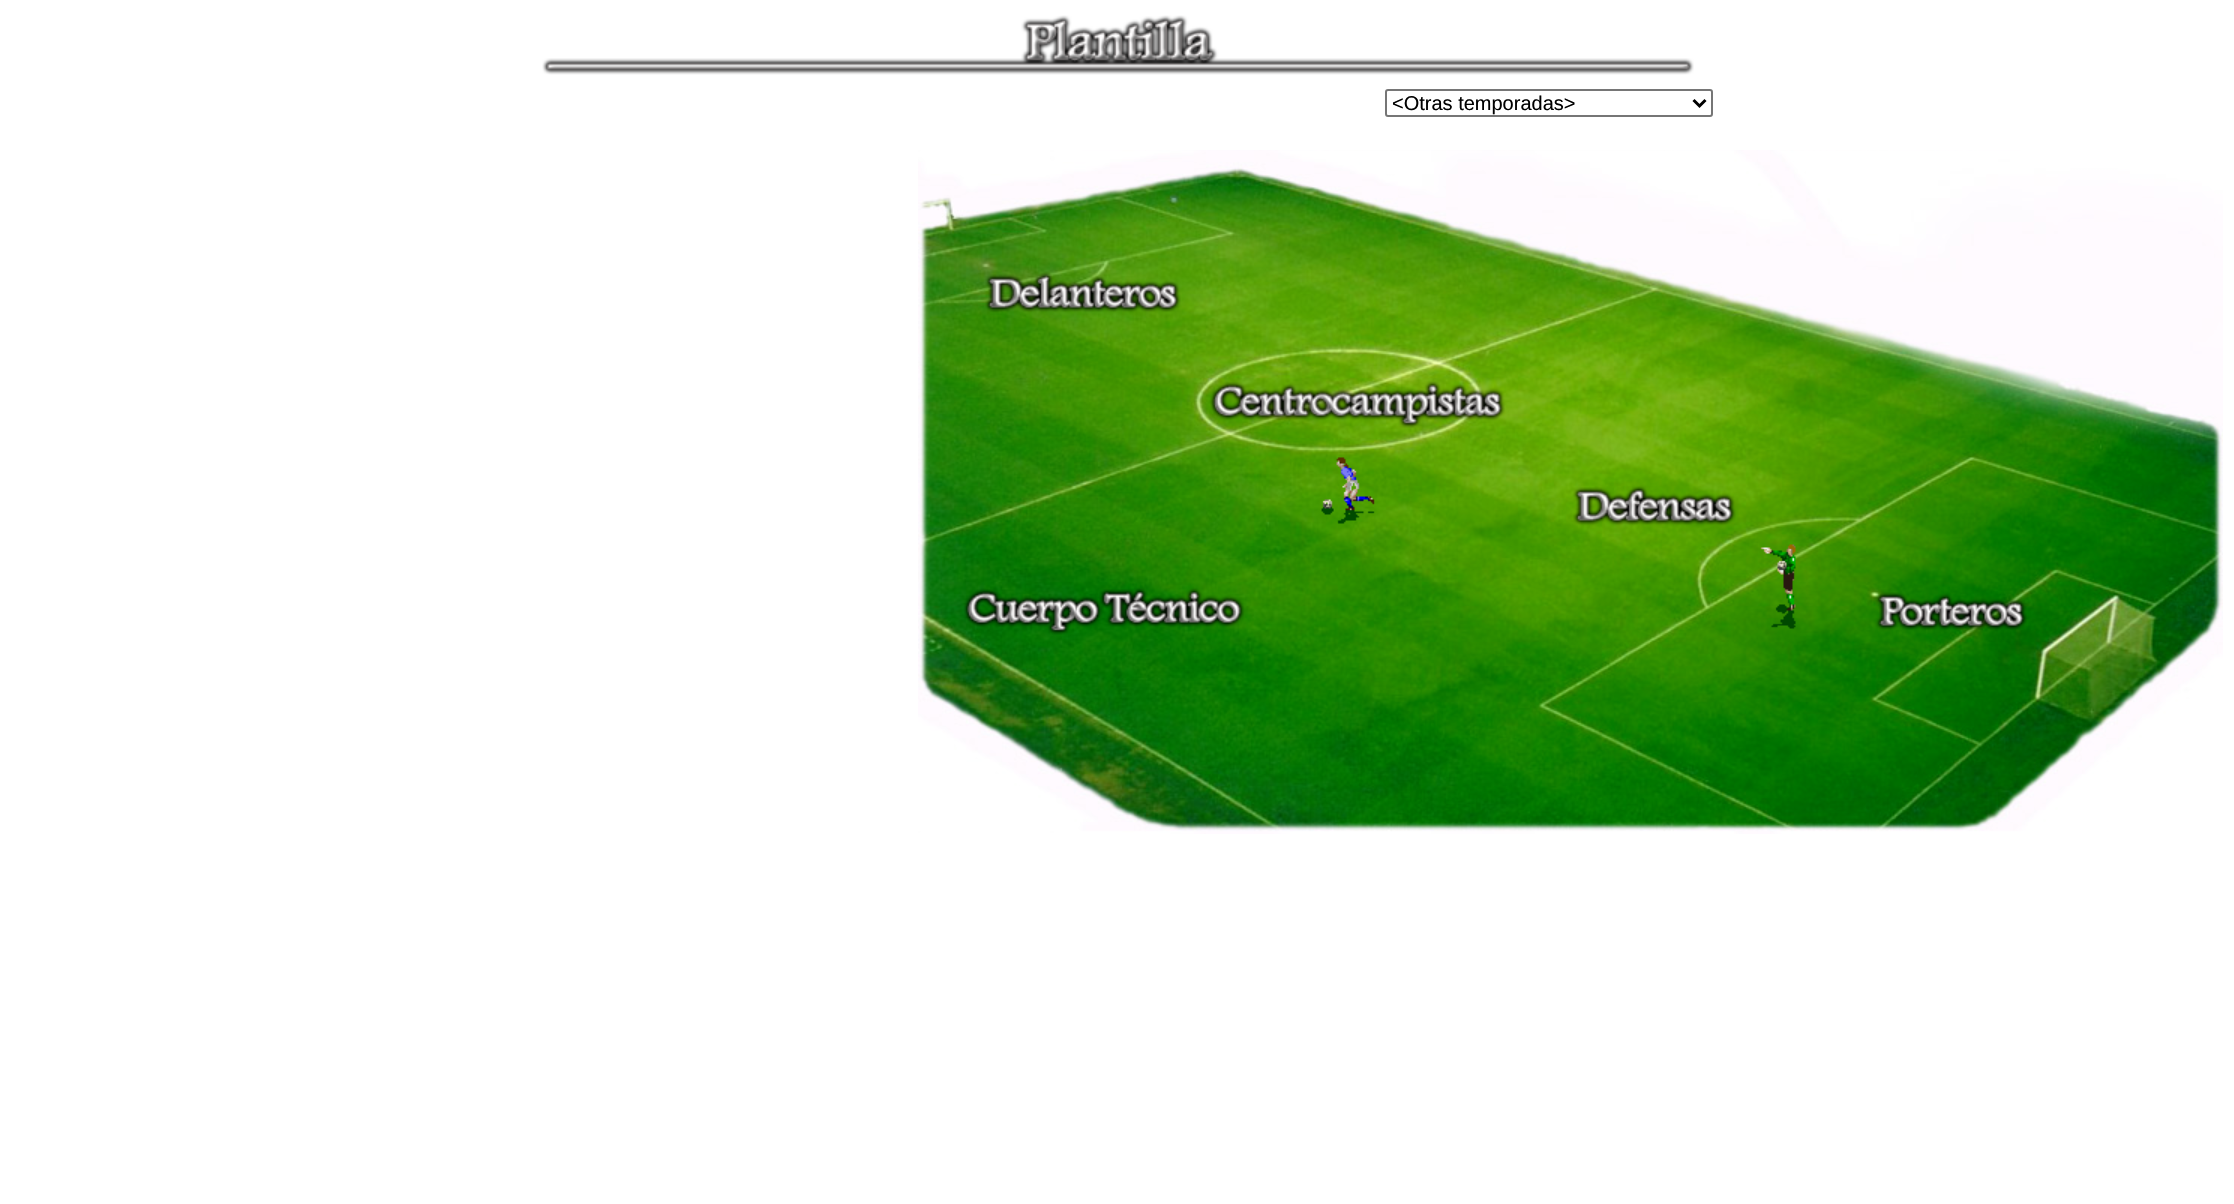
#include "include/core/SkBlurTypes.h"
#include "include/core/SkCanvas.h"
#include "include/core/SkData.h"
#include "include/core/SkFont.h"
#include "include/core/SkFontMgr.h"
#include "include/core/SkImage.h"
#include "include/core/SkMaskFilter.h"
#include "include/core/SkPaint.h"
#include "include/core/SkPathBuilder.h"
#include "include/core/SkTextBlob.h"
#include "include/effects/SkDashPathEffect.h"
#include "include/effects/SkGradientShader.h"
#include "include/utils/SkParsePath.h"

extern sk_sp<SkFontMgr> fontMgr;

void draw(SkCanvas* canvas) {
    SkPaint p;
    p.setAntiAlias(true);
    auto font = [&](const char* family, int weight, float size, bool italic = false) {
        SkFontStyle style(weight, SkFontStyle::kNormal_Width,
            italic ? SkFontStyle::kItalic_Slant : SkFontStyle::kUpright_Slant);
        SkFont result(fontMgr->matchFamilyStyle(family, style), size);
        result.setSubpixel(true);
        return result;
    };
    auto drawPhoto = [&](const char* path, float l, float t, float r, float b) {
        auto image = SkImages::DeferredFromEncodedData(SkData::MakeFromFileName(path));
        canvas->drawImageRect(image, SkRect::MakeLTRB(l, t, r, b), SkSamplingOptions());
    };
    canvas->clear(0xFFFFFFFF);
    drawPhoto("media/1.png", 542, 15, 1694, 75);
    p.setStyle(SkPaint::kStroke_Style);
    p.setStrokeWidth(2);
    p.setColor(0xFF767676);
    canvas->drawRoundRect(SkRect::MakeLTRB(1386, 90, 1712, 116), 2, 2, p);
    p.setStrokeWidth(3);
    p.setColor(0xFF000000);
    canvas->drawPath(SkPathBuilder().moveTo(1693.5f, 100).lineTo(1699.5f, 106).lineTo(1705.5f, 100).detach(), p);
    auto font1 = font("Liberation Sans", 400, 20);
    p.setStyle(SkPaint::kFill_Style);
    canvas->drawString("<Otras temporadas>", 1392, 110, font1, p);
    drawPhoto("media/2.png", 918, 150, 2223, 834);
    drawPhoto("media/3.png", 1321, 457, 1375, 524);
    drawPhoto("media/4.png", 1760, 544, 1796, 629);
}
